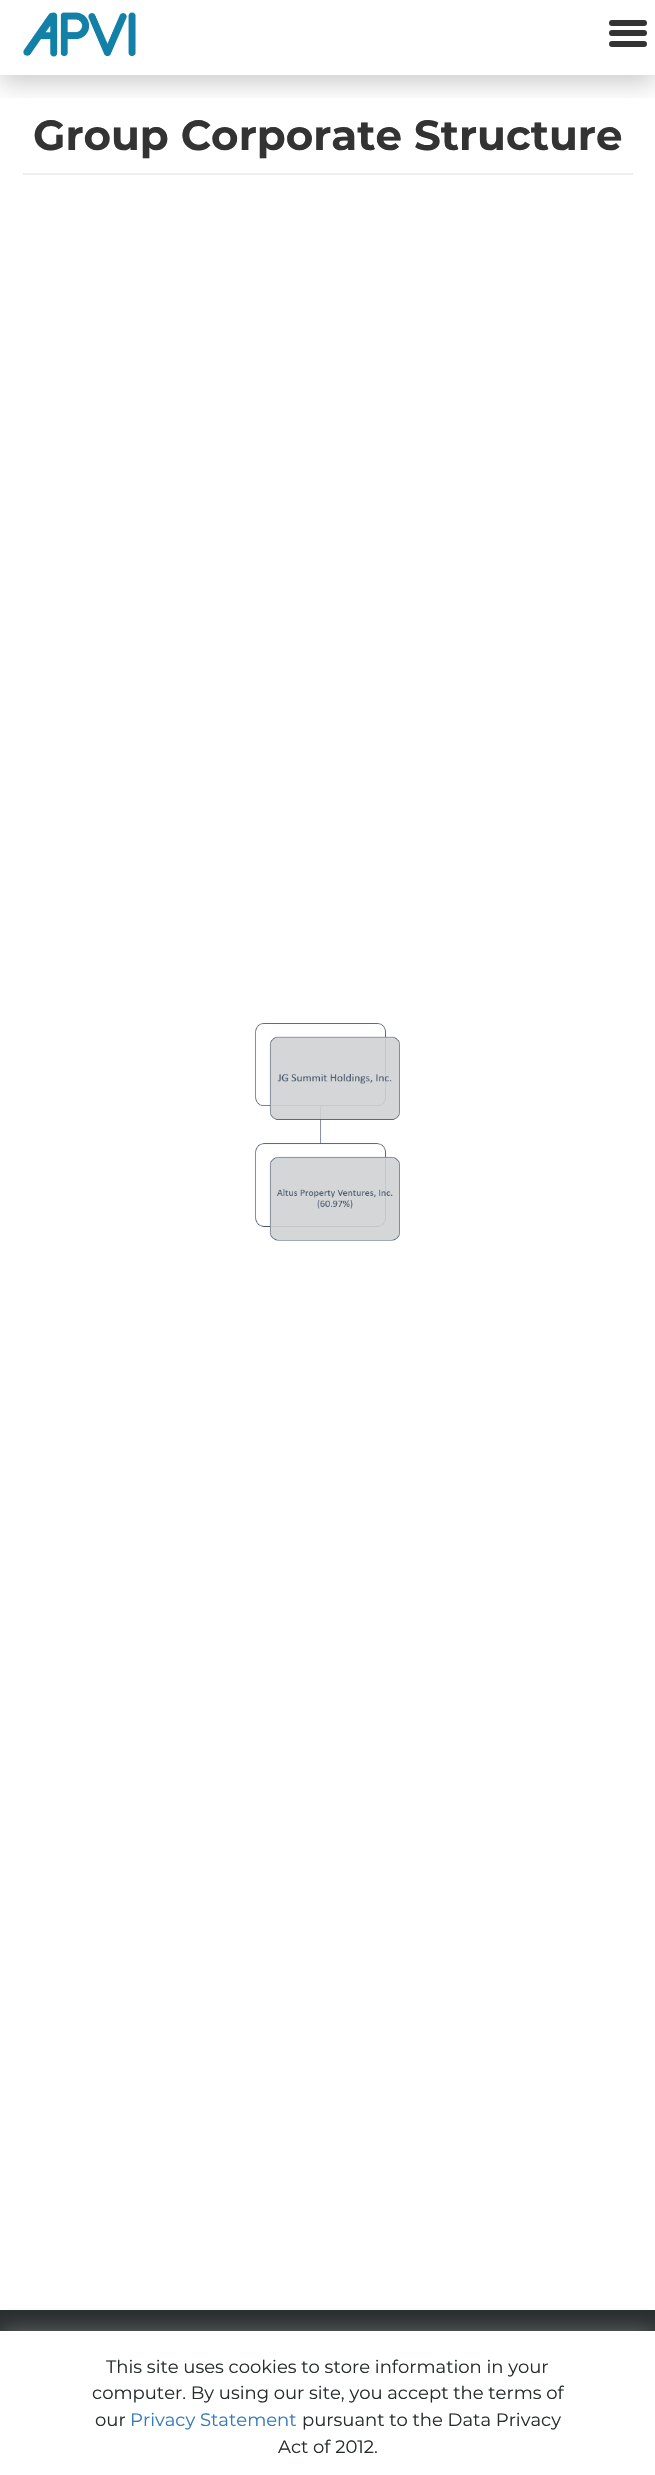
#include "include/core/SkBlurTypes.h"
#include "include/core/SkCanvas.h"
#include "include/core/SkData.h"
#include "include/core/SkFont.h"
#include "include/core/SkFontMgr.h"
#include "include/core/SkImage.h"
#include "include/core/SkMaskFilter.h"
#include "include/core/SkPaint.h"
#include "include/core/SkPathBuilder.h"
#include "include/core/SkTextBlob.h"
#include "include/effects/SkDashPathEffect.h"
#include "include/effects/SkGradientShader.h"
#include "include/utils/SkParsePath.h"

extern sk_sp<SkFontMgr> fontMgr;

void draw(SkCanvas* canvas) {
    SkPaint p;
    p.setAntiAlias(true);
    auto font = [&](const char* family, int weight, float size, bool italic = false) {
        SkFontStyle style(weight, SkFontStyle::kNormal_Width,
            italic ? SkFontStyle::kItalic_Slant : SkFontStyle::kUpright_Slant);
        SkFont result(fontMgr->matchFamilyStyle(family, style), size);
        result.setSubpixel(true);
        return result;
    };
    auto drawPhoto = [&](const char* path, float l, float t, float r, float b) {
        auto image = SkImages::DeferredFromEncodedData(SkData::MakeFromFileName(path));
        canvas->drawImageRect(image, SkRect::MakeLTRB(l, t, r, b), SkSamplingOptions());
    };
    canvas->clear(0xFFFFFFFF);
    canvas->save();
    canvas->clipRect(SkRect::MakeLTRB(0, 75, 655, 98));
    p.setColor(0x33000000);
    p.setMaskFilter(SkMaskFilter::MakeBlur(kNormal_SkBlurStyle, 12));
    canvas->drawRect(SkRect::MakeLTRB(0, 8, 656, 83), p);
    p.setMaskFilter(nullptr);
    canvas->restore();
    drawPhoto("media/1.png", 23, 12, 136, 57);
    p.setColor(0xFF333333);
    canvas->drawRoundRect(SkRect::MakeLTRB(609, 20, 647, 26), 3, 3, p);
    canvas->drawRoundRect(SkRect::MakeLTRB(609, 30, 647, 36), 3, 3, p);
    canvas->drawRoundRect(SkRect::MakeLTRB(609, 41, 647, 47), 3, 3, p);
    p.setColor(0xFFEEEEEE);
    canvas->drawRect(SkRect::MakeLTRB(23, 173, 633, 175), p);
    auto font1 = font("Montserrat", 700, 42);
    p.setColor(0xFF333333);
    canvas->drawString("Group Corporate Structure", 33, 150, font1, p);
    drawPhoto("media/2.png", 255, 1023, 400, 1241);
    p.setColor(0xFF272C2D);
    canvas->drawRect(SkRect::MakeLTRB(0, 2310, 655, 2331), p);
    canvas->save();
    canvas->clipRect(SkRect::MakeLTRB(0, 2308, 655, 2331));
    p.setColor(0xFF6D6D6D);
    p.setMaskFilter(SkMaskFilter::MakeBlur(kNormal_SkBlurStyle, 11));
    canvas->drawRect(SkRect::MakeLTRB(0, 2331, 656, 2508), p);
    p.setMaskFilter(nullptr);
    canvas->restore();
    auto font2 = font("Montserrat", 400, 18);
    p.setColor(0xFF272C2D);
    {
        const struct { const char* s; float x, y; } items[] = {
            {"This site uses cookies to store information in your", 106, 2373},
            {"computer. By using our site, you accept the terms of", 92, 2399},
            {"our", 95, 2426},
        };
        for (auto [s, x, y] : items) {
            canvas->drawString(s, x, y, font2, p);
        }
    }
    p.setColor(0xFF337AB7);
    canvas->drawString("Privacy Statement", 130, 2426, font2, p);
    p.setColor(0xFF272C2D);
    canvas->drawString("pursuant to the Data Privacy", 302, 2426, font2, p);
    canvas->drawString("Act of 2012.", 278, 2453, font2, p);
}
